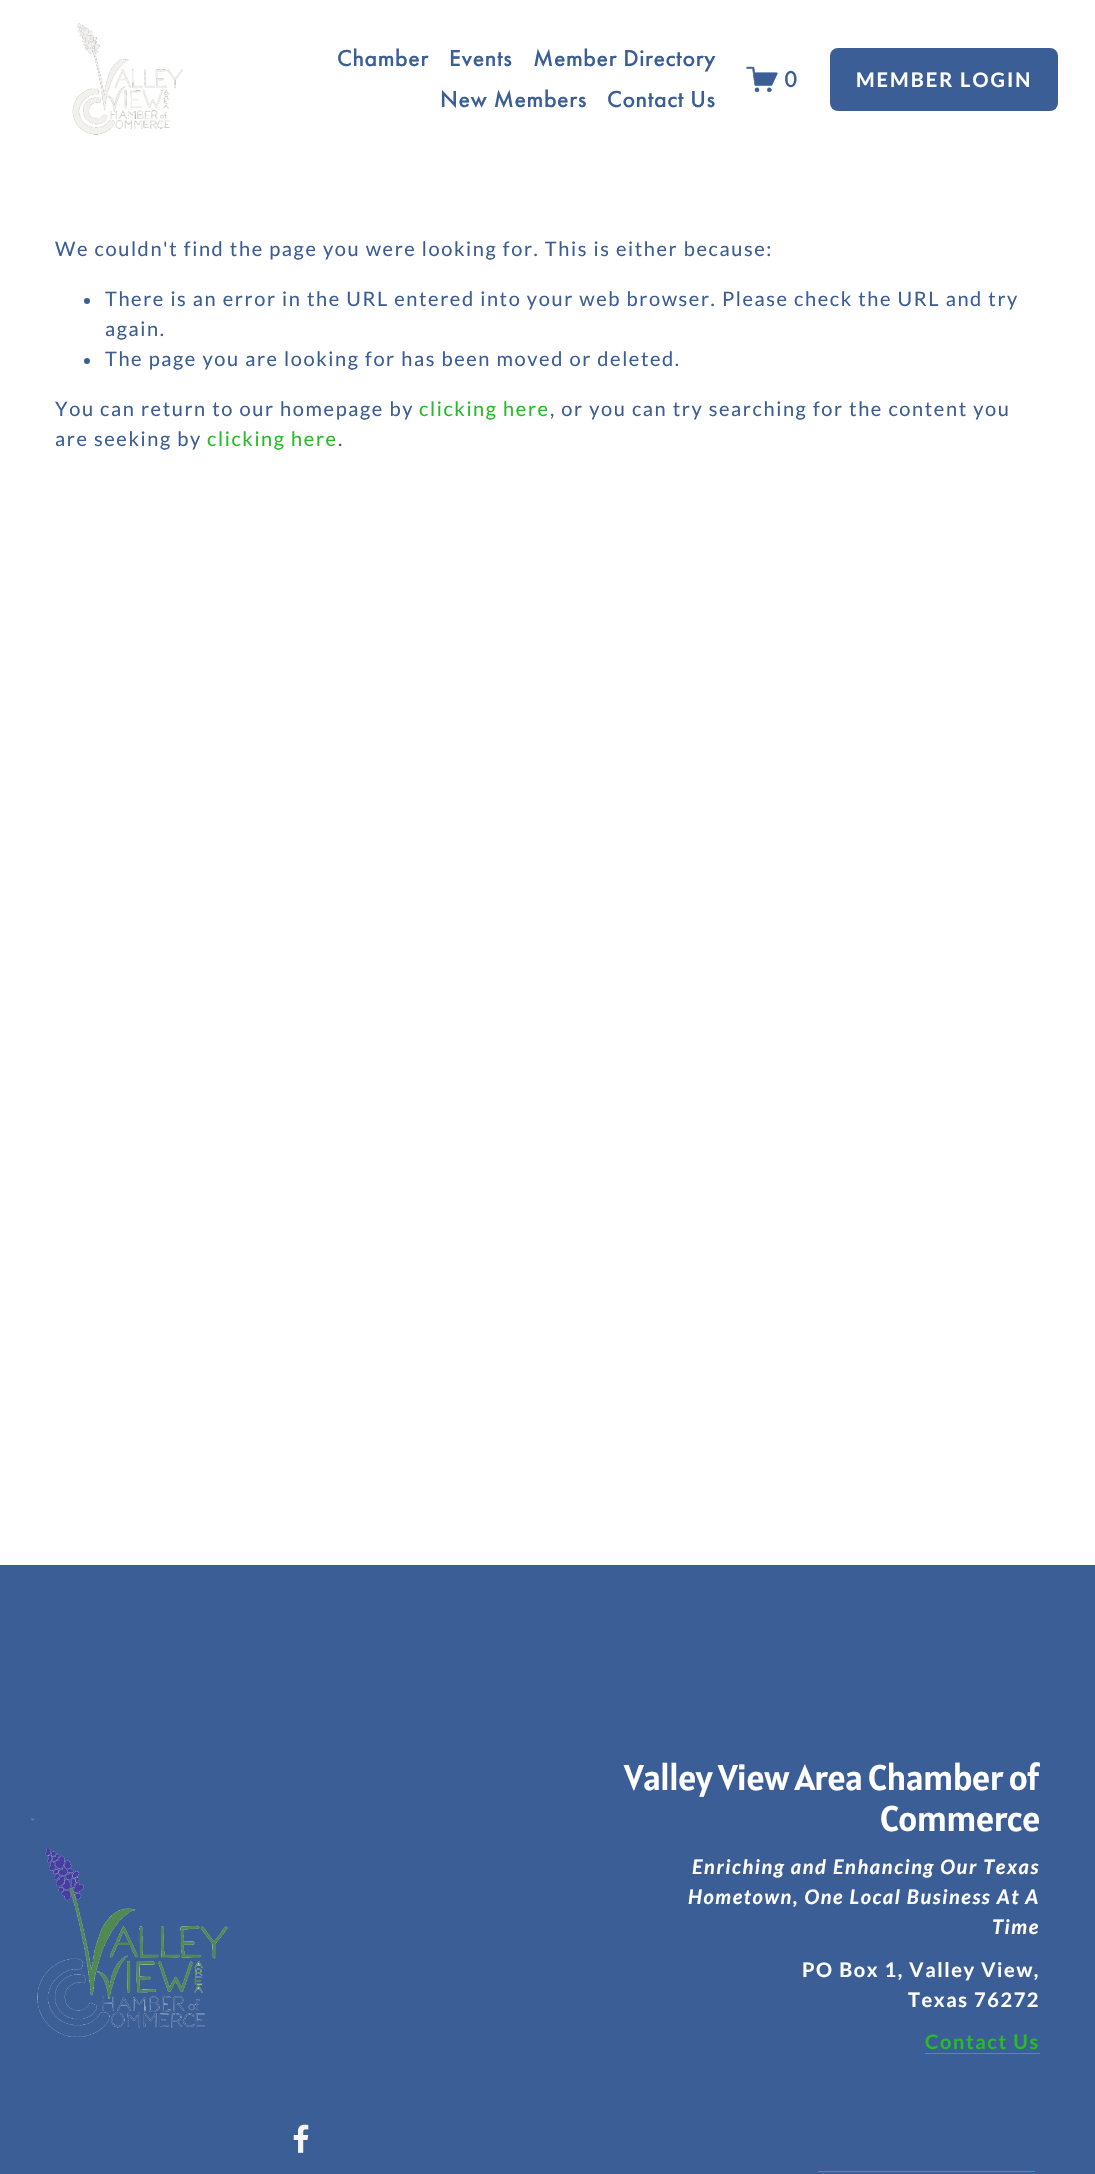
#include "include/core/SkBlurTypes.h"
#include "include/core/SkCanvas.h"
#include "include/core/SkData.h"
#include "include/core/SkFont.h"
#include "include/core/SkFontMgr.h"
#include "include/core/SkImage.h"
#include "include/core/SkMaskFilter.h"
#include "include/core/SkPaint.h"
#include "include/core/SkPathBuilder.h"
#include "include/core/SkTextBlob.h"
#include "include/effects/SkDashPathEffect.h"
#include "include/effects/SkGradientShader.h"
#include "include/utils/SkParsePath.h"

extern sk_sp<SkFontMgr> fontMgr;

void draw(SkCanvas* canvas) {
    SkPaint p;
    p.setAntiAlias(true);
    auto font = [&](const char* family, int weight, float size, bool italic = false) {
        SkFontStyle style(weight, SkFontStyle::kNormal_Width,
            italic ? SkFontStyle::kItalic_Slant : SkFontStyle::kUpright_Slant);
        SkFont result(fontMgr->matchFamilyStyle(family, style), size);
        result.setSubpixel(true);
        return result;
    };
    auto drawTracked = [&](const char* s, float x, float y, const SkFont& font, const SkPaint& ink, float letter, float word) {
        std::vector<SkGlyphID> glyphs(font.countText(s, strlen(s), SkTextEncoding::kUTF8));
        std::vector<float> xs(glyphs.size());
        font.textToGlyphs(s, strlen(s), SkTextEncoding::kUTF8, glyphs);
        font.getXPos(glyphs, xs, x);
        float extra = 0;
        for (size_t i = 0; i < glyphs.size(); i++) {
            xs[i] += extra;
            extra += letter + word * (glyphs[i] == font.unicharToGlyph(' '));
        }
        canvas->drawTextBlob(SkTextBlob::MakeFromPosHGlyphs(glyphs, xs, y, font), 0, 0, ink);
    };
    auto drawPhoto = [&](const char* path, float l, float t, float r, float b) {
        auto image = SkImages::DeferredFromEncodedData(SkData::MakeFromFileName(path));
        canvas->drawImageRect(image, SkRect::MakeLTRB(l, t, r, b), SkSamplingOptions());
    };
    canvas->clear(0xFFFFFFFF);
    drawPhoto("media/1.png", 72, 23, 183, 135);
    auto font1 = font("Futura PT", 500, 24);
    p.setColor(0xFF3C5E96);
    {
        const struct { const char* s; float x, y; } items[] = {
            {"Chamber", 337, 66},
            {"Events", 449, 66},
            {"Member Directory", 533, 66},
            {"New Members", 440, 107},
            {"Contact Us", 607, 107},
        };
        for (auto [s, x, y] : items) {
            drawTracked(s, x, y, font1, p, 0.5f, 0);
        }
    }
    drawPhoto("media/2.png", 746, 66, 778, 93);
    drawTracked("0", 784, 87, font1, p, 0.5f, 0);
    canvas->drawRoundRect(SkRect::MakeLTRB(830, 48, 1058, 111), 8, 8, p);
    auto font2 = font("Lato", 700, 20);
    p.setColor(0xFFFFFFFF);
    drawTracked("MEMBER LOGIN", 856, 87, font2, p, 2, 0);
    auto font3 = font("Lato", 400, 20);
    p.setColor(0xFF3C5E96);
    drawTracked("We couldn't find the page you were looking for. This is either because:", 55, 256, font3, p, 1.6f, 0);
    canvas->drawCircle(87, 301, 3, p);
    drawTracked("There is an error in the URL entered into your web browser. Please check the URL and try", 105, 306, font3, p, 1.6f, 0);
    drawTracked("again.", 105, 336, font3, p, 1.6f, 0);
    canvas->drawCircle(87, 361, 3, p);
    drawTracked("The page you are looking for has been moved or deleted.", 105, 366, font3, p, 1.6f, 0);
    drawTracked("You can return to our homepage by", 55, 416, font3, p, 1.6f, 0);
    p.setColor(0xFF25BC25);
    drawTracked("clicking here", 419, 416, font3, p, 1.6f, 0);
    p.setColor(0xFF3C5E96);
    drawTracked(", or you can try searching for the content you", 550, 416, font3, p, 1.6f, 0);
    drawTracked("are seeking by", 55, 446, font3, p, 1.6f, 0);
    p.setColor(0xFF25BC25);
    drawTracked("clicking here", 207, 446, font3, p, 1.6f, 0);
    p.setColor(0xFF3C5E96);
    drawTracked(".", 338, 446, font3, p, 1.6f, 0);
    canvas->drawRect(SkRect::MakeLTRB(0, 1565, 1095, 2174), p);
    auto font4 = font("Alatsi", 400, 35.75f);
    p.setColor(0xFFFFFFFF);
    drawTracked("Valley View Area Chamber of", 624, 1790, font4, p, -0.75f, 0);
    drawTracked("Commerce", 880, 1831, font4, p, -0.75f, 0);
    drawPhoto("media/3.png", 31, 1818, 228, 2037);
    auto font5 = font("Lato", 700, 20, true);
    {
        const struct { const char* s; float x, y; } items[] = {
            {"Enriching and Enhancing Our Texas", 692, 1874},
            {"Hometown, One Local Business At A", 688, 1904},
            {"Time", 992, 1934},
        };
        for (auto [s, x, y] : items) {
            drawTracked(s, x, y, font5, p, 1.6f, 0);
        }
    }
    drawTracked("PO Box 1, Valley View,", 802, 1977, font2, p, 1.6f, 0);
    drawTracked("Texas 76272", 908, 2007, font2, p, 1.6f, 0);
    p.setColor(0xFF25BC25);
    drawTracked("Contact Us", 925, 2049, font2, p, 1.6f, 0);
    canvas->drawRect(SkRect::MakeLTRB(925, 2053, 1040, 2054), p);
    drawPhoto("media/4.png", 293, 2124, 309, 2153);
    canvas->drawRect(SkRect::MakeLTRB(818, 2171, 1035, 2172), p);
}
